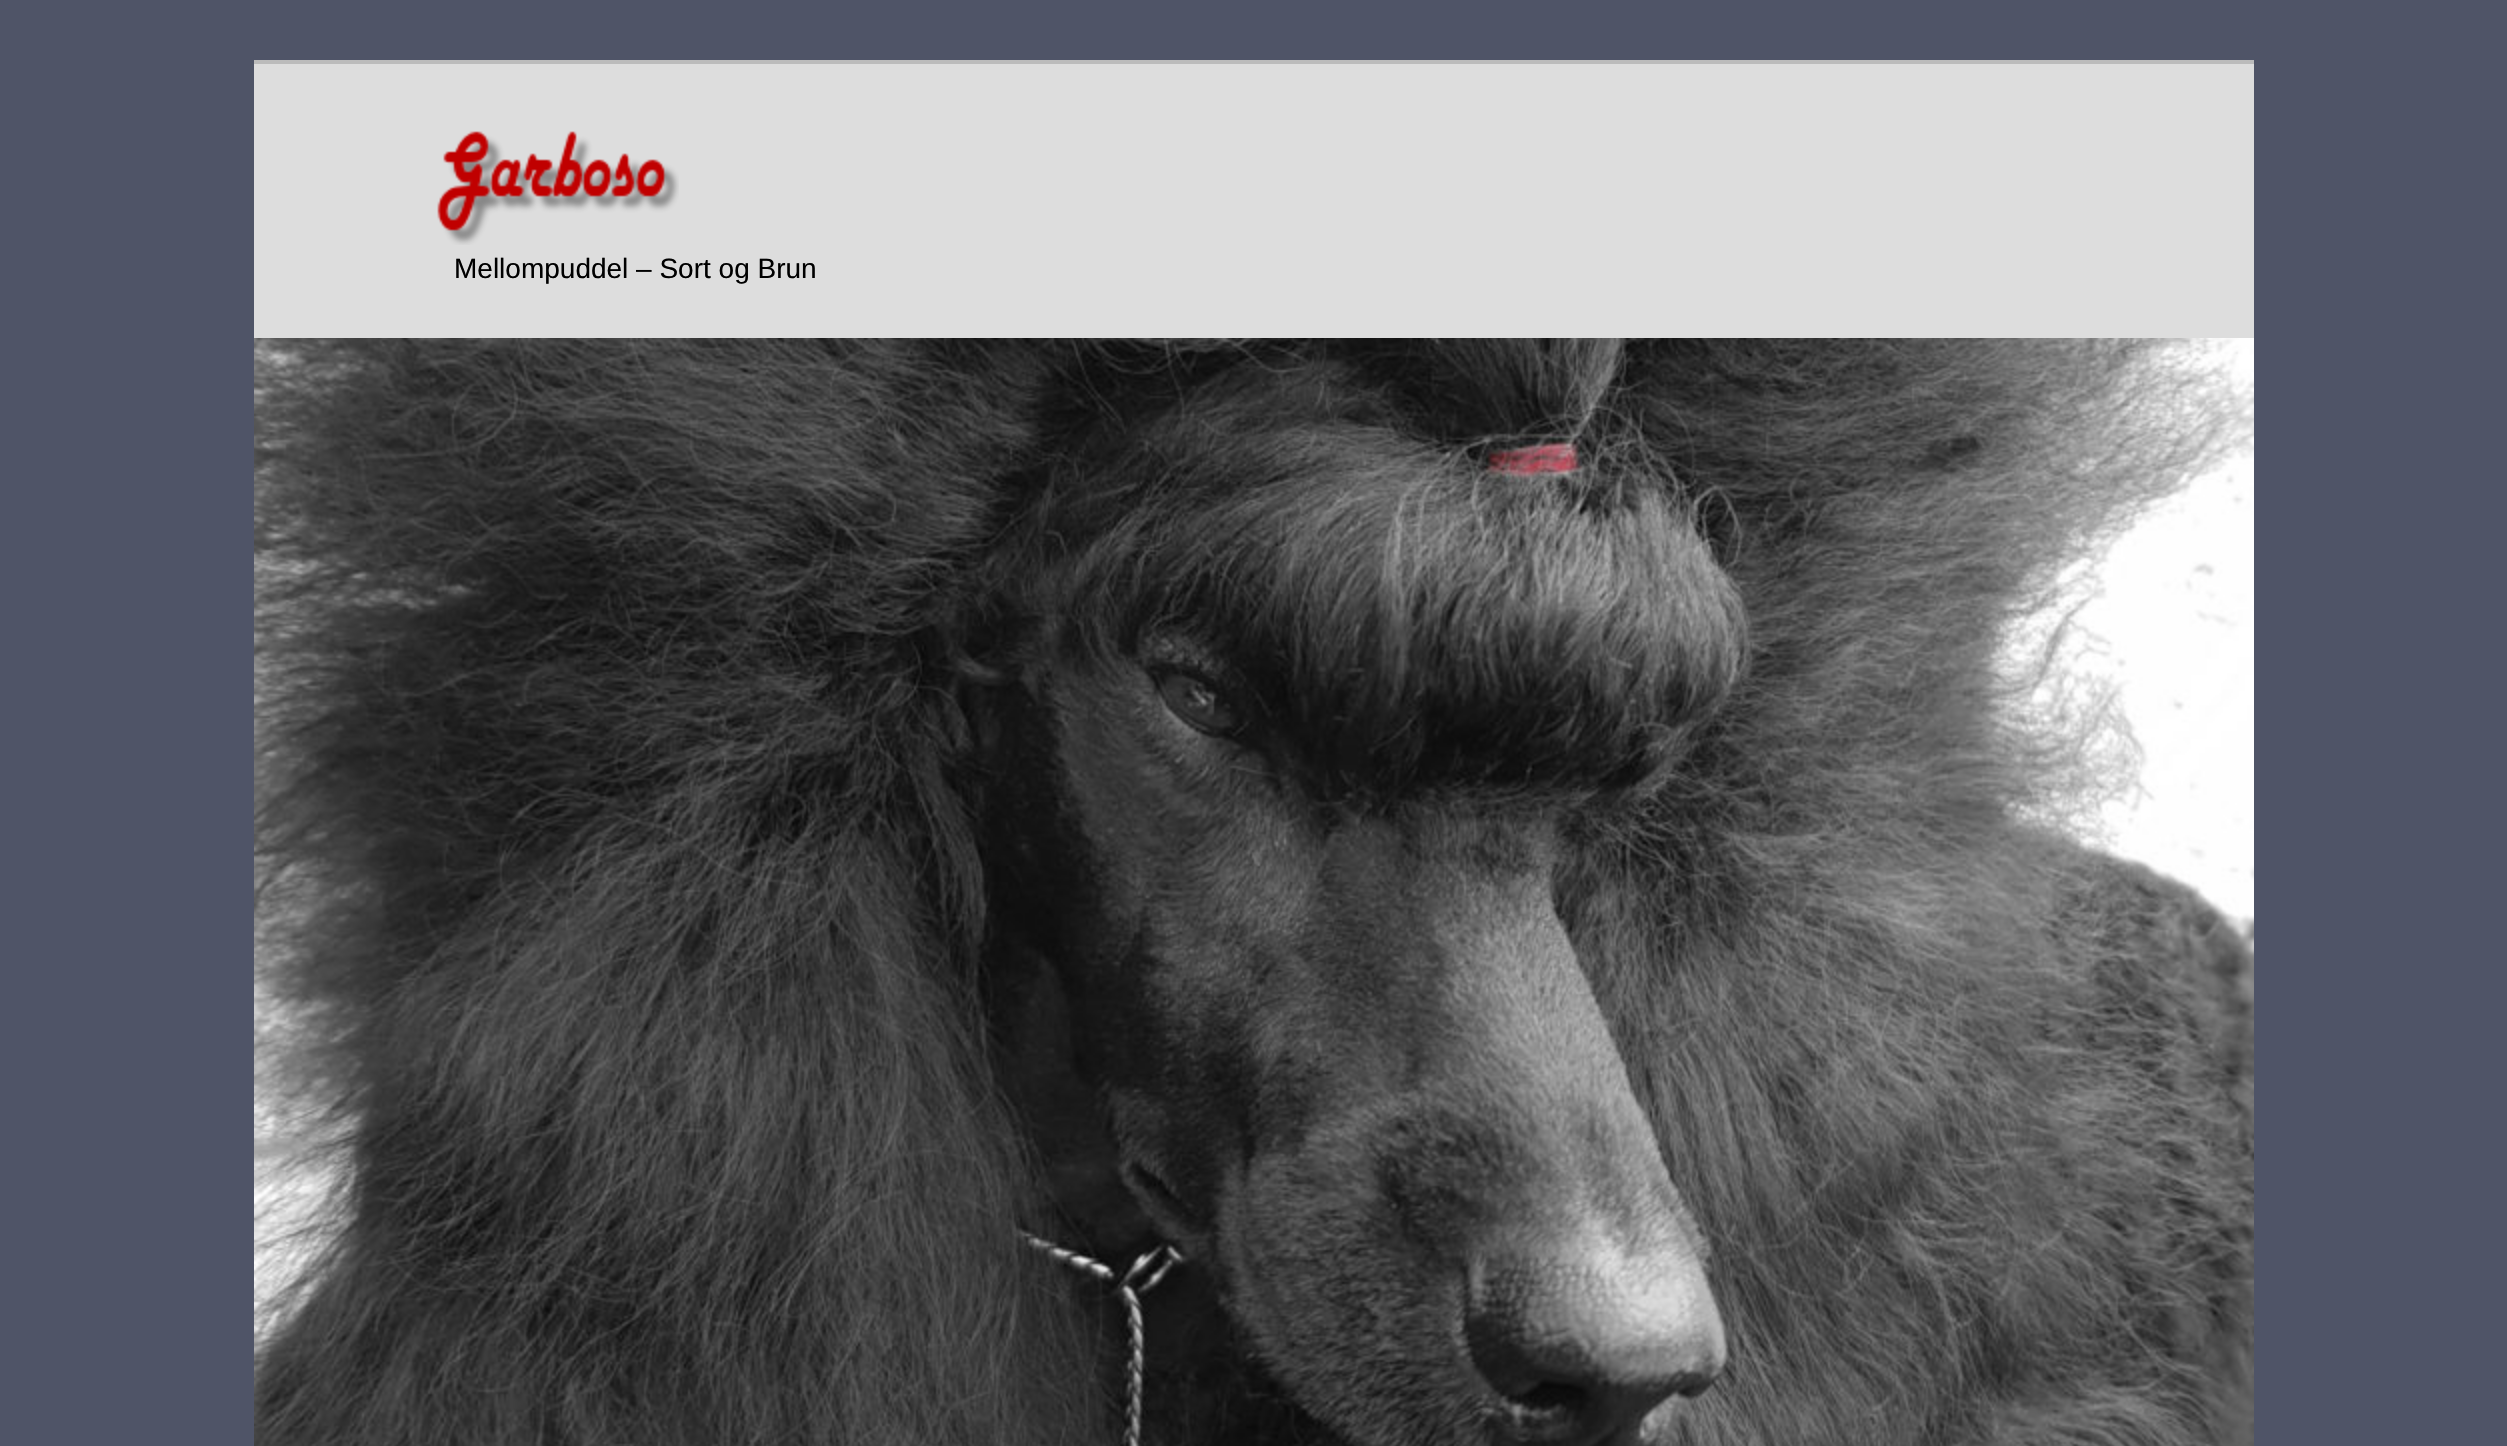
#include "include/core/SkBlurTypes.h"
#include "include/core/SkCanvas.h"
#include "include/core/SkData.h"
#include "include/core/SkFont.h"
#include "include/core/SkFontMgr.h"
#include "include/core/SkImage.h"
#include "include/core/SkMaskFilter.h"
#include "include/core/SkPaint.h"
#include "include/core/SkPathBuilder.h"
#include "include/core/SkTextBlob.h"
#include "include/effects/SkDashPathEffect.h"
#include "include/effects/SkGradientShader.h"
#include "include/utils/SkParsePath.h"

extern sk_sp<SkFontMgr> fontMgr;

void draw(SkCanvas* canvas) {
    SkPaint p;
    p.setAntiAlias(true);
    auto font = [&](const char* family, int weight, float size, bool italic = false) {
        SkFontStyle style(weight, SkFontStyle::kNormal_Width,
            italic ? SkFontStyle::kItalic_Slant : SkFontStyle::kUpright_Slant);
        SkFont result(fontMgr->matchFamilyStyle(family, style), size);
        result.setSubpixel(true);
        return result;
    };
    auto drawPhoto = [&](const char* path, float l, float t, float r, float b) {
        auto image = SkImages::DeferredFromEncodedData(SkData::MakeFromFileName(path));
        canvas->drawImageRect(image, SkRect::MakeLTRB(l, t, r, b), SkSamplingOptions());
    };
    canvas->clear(0xFF4F5467);
    p.setColor(0xFFDDDDDD);
    canvas->drawRect(SkRect::MakeLTRB(254, 64, 2254, 338), p);
    p.setColor(0xFFBBBBBB);
    canvas->drawRect(SkRect::MakeLTRB(254, 60, 2254, 64), p);
    drawPhoto("media/1.png", 437, 131, 679, 245);
    auto font1 = font("Liberation Sans", 400, 28);
    p.setColor(0xFF000000);
    canvas->drawString("Mellompuddel – Sort og Brun", 454, 278, font1, p);
    drawPhoto("media/2.png", 254, 338, 2254, 1446);
}
